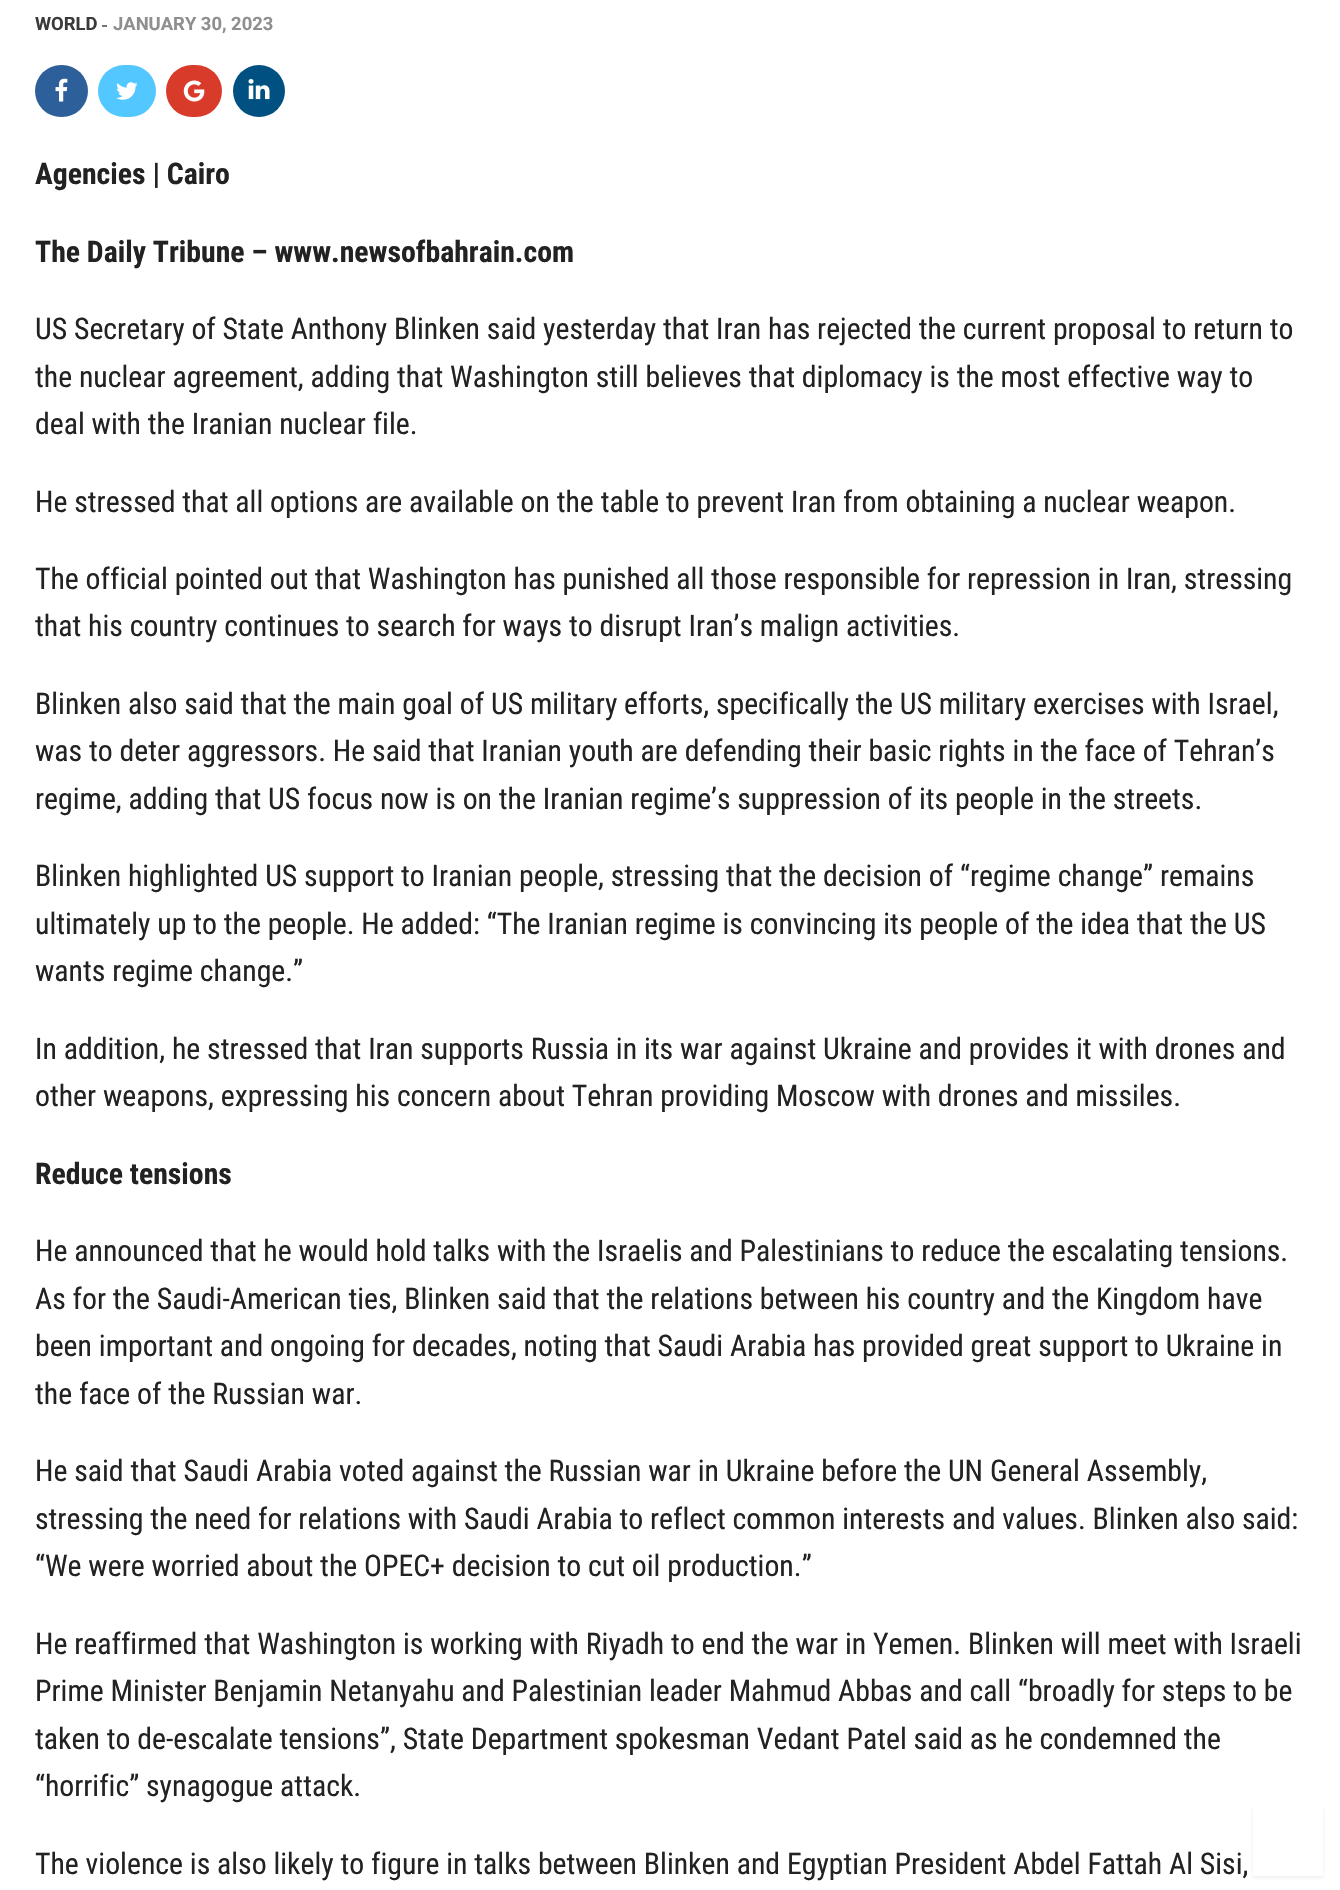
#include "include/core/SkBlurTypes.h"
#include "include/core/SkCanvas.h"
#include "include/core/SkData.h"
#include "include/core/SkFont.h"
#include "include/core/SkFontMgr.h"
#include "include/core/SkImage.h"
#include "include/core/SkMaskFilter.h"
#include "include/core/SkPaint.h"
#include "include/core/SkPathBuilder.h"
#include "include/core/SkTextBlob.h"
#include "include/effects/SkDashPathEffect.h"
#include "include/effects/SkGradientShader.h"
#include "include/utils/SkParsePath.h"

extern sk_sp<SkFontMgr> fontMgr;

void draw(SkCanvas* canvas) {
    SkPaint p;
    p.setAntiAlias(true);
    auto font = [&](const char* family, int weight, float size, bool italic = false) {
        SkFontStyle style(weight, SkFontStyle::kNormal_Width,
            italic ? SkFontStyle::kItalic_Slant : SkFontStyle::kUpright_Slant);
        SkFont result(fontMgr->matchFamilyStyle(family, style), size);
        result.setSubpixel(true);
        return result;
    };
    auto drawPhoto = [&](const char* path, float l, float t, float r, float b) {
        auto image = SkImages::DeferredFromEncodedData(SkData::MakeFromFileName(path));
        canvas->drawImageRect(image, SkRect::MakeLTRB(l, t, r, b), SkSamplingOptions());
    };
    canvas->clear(0xFFFFFFFF);
    auto font1 = font("Roboto", 700, 18.4f);
    p.setColor(0xFF3A3A3A);
    canvas->drawString("WORLD", 35, 30, font1, p);
    p.setColor(0xFF737373);
    canvas->drawRect(SkRect::MakeLTRB(102, 25, 107, 27), p);
    p.setColor(0xFF8F8F8F);
    canvas->drawString("JANUARY 30, 2023", 113, 30, font1, p);
    p.setColor(0xFF2D5F9A);
    canvas->drawRoundRect(SkRect::MakeLTRB(35, 65, 88, 117), 26, 26, p);
    drawPhoto("media/1.png", 55, 78, 68, 102);
    p.setColor(0xFF53C7FF);
    canvas->drawRoundRect(SkRect::MakeLTRB(98, 65, 156, 117), 26, 26, p);
    drawPhoto("media/2.png", 116, 82, 138, 100);
    p.setColor(0xFFD93B2B);
    canvas->drawRoundRect(SkRect::MakeLTRB(166, 65, 222, 117), 26, 26, p);
    drawPhoto("media/3.png", 183, 80, 205, 102);
    p.setColor(0xFF005182);
    canvas->drawCircle(259, 91, 26, p);
    drawPhoto("media/4.png", 248, 79, 270, 100);
    auto font2 = font("Roboto Condensed", 700, 29.75f);
    p.setColor(0xFF222222);
    canvas->drawString("Agencies | Cairo", 35, 184, font2, p);
    canvas->drawString("The Daily Tribune – www.newsofbahrain.com", 35, 262, font2, p);
    auto font3 = font("Roboto Condensed", 400, 29.75f);
    {
        const struct { const char* s; float x, y; } items[] = {
            {"US Secretary of State Anthony Blinken said yesterday that Iran has rejected the current proposal to return to", 35, 339},
            {"the nuclear agreement, adding that Washington still believes that diplomacy is the most effective way to", 35, 387},
            {"deal with the Iranian nuclear file.", 35, 434},
            {"He stressed that all options are available on the table to prevent Iran from obtaining a nuclear weapon.", 35, 512},
            {"The official pointed out that Washington has punished all those responsible for repression in Iran, stressing", 35, 589},
            {"that his country continues to search for ways to disrupt Iran’s malign activities.", 35, 636},
            {"Blinken also said that the main goal of US military efforts, specifically the US military exercises with Israel,", 35, 714},
            {"was to deter aggressors. He said that Iranian youth are defending their basic rights in the face of Tehran’s", 35, 761},
            {"regime, adding that US focus now is on the Iranian regime’s suppression of its people in the streets.", 35, 809},
            {"Blinken highlighted US support to Iranian people, stressing that the decision of “regime change” remains", 35, 886},
            {"ultimately up to the people. He added: “The Iranian regime is convincing its people of the idea that the US", 35, 934},
            {"wants regime change.”", 35, 981},
            {"In addition, he stressed that Iran supports Russia in its war against Ukraine and provides it with drones and", 35, 1059},
            {"other weapons, expressing his concern about Tehran providing Moscow with drones and missiles.", 35, 1106},
        };
        for (auto [s, x, y] : items) {
            canvas->drawString(s, x, y, font3, p);
        }
    }
    canvas->drawString("Reduce tensions", 35, 1184, font2, p);
    {
        const struct { const char* s; float x, y; } items[] = {
            {"He announced that he would hold talks with the Israelis and Palestinians to reduce the escalating tensions.", 35, 1261},
            {"As for the Saudi-American ties, Blinken said that the relations between his country and the Kingdom have", 35, 1309},
            {"been important and ongoing for decades, noting that Saudi Arabia has provided great support to Ukraine in", 35, 1356},
            {"the face of the Russian war.", 35, 1404},
            {"He said that Saudi Arabia voted against the Russian war in Ukraine before the UN General Assembly,", 35, 1481},
            {"stressing the need for relations with Saudi Arabia to reflect common interests and values. Blinken also said:", 35, 1529},
            {"“We were worried about the OPEC+ decision to cut oil production.”", 35, 1576},
            {"He reaffirmed that Washington is working with Riyadh to end the war in Yemen. Blinken will meet with Israeli", 35, 1654},
            {"Prime Minister Benjamin Netanyahu and Palestinian leader Mahmud Abbas and call “broadly for steps to be", 35, 1701},
            {"taken to de-escalate tensions”, State Department spokesman Vedant Patel said as he condemned the", 35, 1749},
            {"“horrific” synagogue attack.", 35, 1796},
            {"The violence is also likely to figure in talks between Blinken and Egyptian President Abdel Fattah Al Sisi,", 35, 1874},
        };
        for (auto [s, x, y] : items) {
            canvas->drawString(s, x, y, font3, p);
        }
    }
    canvas->save();
    canvas->clipPath(SkPathBuilder(SkPathFillType::kEvenOdd).moveTo(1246, 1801).lineTo(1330, 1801).lineTo(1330, 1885).lineTo(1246, 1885).close().moveTo(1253, 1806).lineTo(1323, 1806).lineTo(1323, 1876).lineTo(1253, 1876).close().detach(), true);
    p.setColor(0x174D4D4D);
    p.setMaskFilter(SkMaskFilter::MakeBlur(kNormal_SkBlurStyle, 2));
    canvas->drawRect(SkRect::MakeLTRB(1253, 1808, 1323, 1878), p);
    p.setMaskFilter(nullptr);
    canvas->restore();
}
